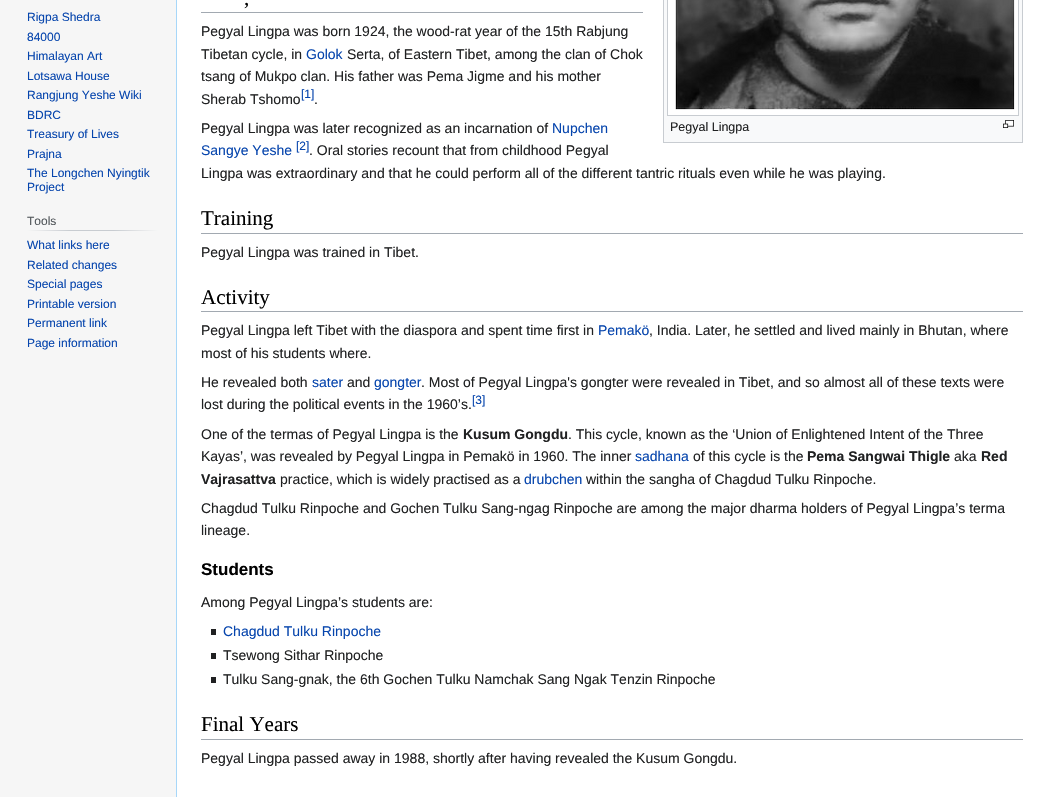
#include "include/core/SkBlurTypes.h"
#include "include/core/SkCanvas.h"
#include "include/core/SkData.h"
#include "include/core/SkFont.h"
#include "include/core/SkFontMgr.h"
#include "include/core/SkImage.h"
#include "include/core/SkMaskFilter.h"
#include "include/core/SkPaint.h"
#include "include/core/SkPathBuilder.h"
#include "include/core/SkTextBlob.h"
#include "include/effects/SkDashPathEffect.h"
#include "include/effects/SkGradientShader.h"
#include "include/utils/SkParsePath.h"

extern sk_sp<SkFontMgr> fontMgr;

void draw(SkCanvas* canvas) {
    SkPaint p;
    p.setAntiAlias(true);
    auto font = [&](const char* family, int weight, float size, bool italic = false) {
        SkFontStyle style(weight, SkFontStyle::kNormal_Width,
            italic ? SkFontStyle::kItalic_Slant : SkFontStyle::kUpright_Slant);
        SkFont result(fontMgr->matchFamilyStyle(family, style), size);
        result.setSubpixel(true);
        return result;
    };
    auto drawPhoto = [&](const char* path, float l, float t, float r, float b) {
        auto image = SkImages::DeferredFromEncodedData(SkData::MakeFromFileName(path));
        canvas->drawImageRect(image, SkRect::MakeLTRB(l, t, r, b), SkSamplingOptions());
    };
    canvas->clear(0xFFF6F6F6);
    auto font1 = font("Liberation Sans", 400, 12);
    p.setColor(0xFF0645AD);
    {
        const struct { const char* s; float x, y; } items[] = {
            {"Rigpa Shedra", 27, 21},
            {"84000", 27, 41},
            {"Himalayan Art", 27, 60},
            {"Lotsawa House", 27, 80},
            {"Rangjung Yeshe Wiki", 27, 99},
            {"BDRC", 27, 119},
            {"Treasury of Lives", 27, 138},
            {"Prajna", 27, 158},
            {"The Longchen Nyingtik", 27, 177},
            {"Project", 27, 191},
        };
        for (auto [s, x, y] : items) {
            canvas->drawString(s, x, y, font1, p);
        }
    }
    {
        const SkColor colors[] = {0xFFF6F6F6, 0xFFC8CCD1, 0xFFC8CCD1, 0xFFF6F6F6};
        const float stops[] = {0, 0.33f, 0.66f, 1};
        const SkPoint ends[] = {{27, 231}, {158, 231}};
        p.setShader(SkGradientShader::MakeLinear(ends, colors, stops, 4, SkTileMode::kClamp));
        p.setAlpha(255);
    }
    canvas->drawRect(SkRect::MakeLTRB(27, 230, 158, 231), p);
    p.setShader(nullptr);
    p.setColor(0xFF54595D);
    canvas->drawString("Tools", 27, 225, font1, p);
    p.setColor(0xFF0645AD);
    {
        const struct { const char* s; float x, y; } items[] = {
            {"What links here", 27, 249},
            {"Related changes", 27, 269},
            {"Special pages", 27, 288},
            {"Printable version", 27, 308},
            {"Permanent link", 27, 327},
            {"Page information", 27, 347},
        };
        for (auto [s, x, y] : items) {
            canvas->drawString(s, x, y, font1, p);
        }
    }
    {
        const struct { float l, t, r, b; SkColor color; } items[] = {
            {177, 0, 1047, 797, 0xFFFFFFFF},
            {176, 0, 177, 797, 0xFFA7D7F9},
            {201, 12, 643, 13, 0xFFA2A9B1},
        };
        for (auto [l, t, r, b, color] : items) {
            p.setColor(color);
            canvas->drawRect(SkRect::MakeLTRB(l, t, r, b), p);
        }
    }
    auto font2 = font("Liberation Serif", 400, 21);
    p.setColor(0xFF000000);
    canvas->drawString(",", 244, 5, font2, p);
    auto font3 = font("Liberation Sans", 400, 14);
    p.setColor(0xFF202122);
    canvas->drawString("Pegyal Lingpa was born 1924, the wood-rat year of the 15th Rabjung", 201, 36, font3, p);
    canvas->drawString("Tibetan cycle, in", 201, 59, font3, p);
    p.setColor(0xFF0645AD);
    canvas->drawString("Golok", 306, 59, font3, p);
    p.setColor(0xFF202122);
    {
        const struct { const char* s; float x, y; } items[] = {
            {"Serta, of Eastern Tibet, among the clan of Chok", 347, 59},
            {"tsang of Mukpo clan. His father was Pema Jigme and his mother", 201, 81},
            {"Sherab Tshomo", 201, 104},
        };
        for (auto [s, x, y] : items) {
            canvas->drawString(s, x, y, font3, p);
        }
    }
    p.setColor(0xFF0645AD);
    canvas->drawString("[1]", 301, 98, font1, p);
    p.setColor(0xFF202122);
    canvas->drawString(".", 314, 104, font3, p);
    canvas->drawString("Pegyal Lingpa was later recognized as an incarnation of", 201, 133, font3, p);
    p.setColor(0xFF0645AD);
    canvas->drawString("Nupchen", 552, 133, font3, p);
    canvas->drawString("Sangye Yeshe", 201, 155, font3, p);
    canvas->drawString("[2]", 296, 150, font1, p);
    p.setColor(0xFF202122);
    canvas->drawString(". Oral stories recount that from childhood Pegyal", 309, 155, font3, p);
    canvas->drawString("Lingpa was extraordinary and that he could perform all of the different tantric rituals even while he was playing.", 201, 178, font3, p);
    {
        const struct { float l, t, r, b; SkColor color; } items[] = {
            {664, 0, 1022, 142, 0xFFF8F9FA},
            {663, 142, 1023, 143, 0xFFC8CCD1},
            {1022, 0, 1023, 143, 0xFFC8CCD1},
            {663, 0, 664, 143, 0xFFC8CCD1},
        };
        for (auto [l, t, r, b, color] : items) {
            p.setColor(color);
            canvas->drawRect(SkRect::MakeLTRB(l, t, r, b), p);
        }
    }
    p.setColor(0xFFFFFFFF);
    canvas->drawRect(SkRect::MakeLTRB(667.5f, -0.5f, 1018.5f, 115.5f), p);
    p.setStyle(SkPaint::kStroke_Style);
    p.setStrokeWidth(1);
    p.setColor(0xFFC8CCD1);
    canvas->drawRect(SkRect::MakeLTRB(667.5f, -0.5f, 1018.5f, 115.5f), p);
    drawPhoto("media/1.png", 675, 0, 1015, 110);
    drawPhoto("media/2.png", 1003, 120, 1014, 128);
    auto font4 = font("Liberation Sans", 400, 12.5f);
    p.setStyle(SkPaint::kFill_Style);
    p.setColor(0xFF202122);
    canvas->drawString("Pegyal Lingpa", 670, 131, font4, p);
    p.setColor(0xFFA2A9B1);
    canvas->drawRect(SkRect::MakeLTRB(201, 233, 1023, 234), p);
    p.setColor(0xFF000000);
    canvas->drawString("Training", 201, 225, font2, p);
    p.setColor(0xFF202122);
    canvas->drawString("Pegyal Lingpa was trained in Tibet.", 201, 257, font3, p);
    p.setColor(0xFFA2A9B1);
    canvas->drawRect(SkRect::MakeLTRB(201, 311, 1023, 312), p);
    p.setColor(0xFF000000);
    canvas->drawString("Activity", 201, 304, font2, p);
    p.setColor(0xFF202122);
    canvas->drawString("Pegyal Lingpa left Tibet with the diaspora and spent time first in", 201, 335, font3, p);
    p.setColor(0xFF0645AD);
    canvas->drawString("Pemakö", 598, 335, font3, p);
    p.setColor(0xFF202122);
    {
        const struct { const char* s; float x, y; } items[] = {
            {", India. Later, he settled and lived mainly in Bhutan, where", 649, 335},
            {"most of his students where.", 201, 358},
            {"He revealed both", 201, 387},
        };
        for (auto [s, x, y] : items) {
            canvas->drawString(s, x, y, font3, p);
        }
    }
    p.setColor(0xFF0645AD);
    canvas->drawString("sater", 312, 387, font3, p);
    p.setColor(0xFF202122);
    canvas->drawString("and", 347, 387, font3, p);
    p.setColor(0xFF0645AD);
    canvas->drawString("gongter", 374, 387, font3, p);
    p.setColor(0xFF202122);
    canvas->drawString(". Most of Pegyal Lingpa's gongter were revealed in Tibet, and so almost all of these texts were", 421, 387, font3, p);
    canvas->drawString("lost during the political events in the 1960’s.", 201, 409, font3, p);
    p.setColor(0xFF0645AD);
    canvas->drawString("[3]", 472, 404, font1, p);
    p.setColor(0xFF202122);
    canvas->drawString("One of the termas of Pegyal Lingpa is the", 201, 439, font3, p);
    auto font5 = font("Liberation Sans", 700, 14);
    canvas->drawString("Kusum Gongdu", 463, 439, font5, p);
    canvas->drawString(". This cycle, known as the ‘Union of Enlightened Intent of the Three", 568, 439, font3, p);
    canvas->drawString("Kayas’, was revealed by Pegyal Lingpa in Pemakö in 1960. The inner", 201, 461, font3, p);
    p.setColor(0xFF0645AD);
    canvas->drawString("sadhana", 635, 461, font3, p);
    p.setColor(0xFF202122);
    canvas->drawString("of this cycle is the", 693, 461, font3, p);
    canvas->drawString("Pema Sangwai Thigle", 807, 461, font5, p);
    canvas->drawString("aka", 954, 461, font3, p);
    canvas->drawString("Red", 981, 461, font5, p);
    canvas->drawString("Vajrasattva", 201, 484, font5, p);
    canvas->drawString("practice, which is widely practised as a", 280, 484, font3, p);
    p.setColor(0xFF0645AD);
    canvas->drawString("drubchen", 524, 484, font3, p);
    p.setColor(0xFF202122);
    {
        const struct { const char* s; float x, y; } items[] = {
            {"within the sangha of Chagdud Tulku Rinpoche.", 586, 484},
            {"Chagdud Tulku Rinpoche and Gochen Tulku Sang-ngag Rinpoche are among the major dharma holders of Pegyal Lingpa’s terma", 201, 513},
            {"lineage.", 201, 535},
        };
        for (auto [s, x, y] : items) {
            canvas->drawString(s, x, y, font3, p);
        }
    }
    auto font6 = font("Liberation Sans", 700, 17);
    p.setColor(0xFF000000);
    canvas->drawString("Students", 201, 575, font6, p);
    p.setColor(0xFF202122);
    canvas->drawString("Among Pegyal Lingpa’s students are:", 201, 607, font3, p);
    canvas->drawRect(SkRect::MakeLTRB(211, 629, 216, 635), p);
    p.setColor(0xFF0645AD);
    canvas->drawString("Chagdud Tulku Rinpoche", 223, 636, font3, p);
    p.setColor(0xFF202122);
    canvas->drawRect(SkRect::MakeLTRB(211, 653, 216, 659), p);
    canvas->drawString("Tsewong Sithar Rinpoche", 223, 660, font3, p);
    canvas->drawRect(SkRect::MakeLTRB(211, 677, 216, 683), p);
    canvas->drawString("Tulku Sang-gnak, the 6th Gochen Tulku Namchak Sang Ngak Tenzin Rinpoche", 223, 684, font3, p);
    p.setColor(0xFFA2A9B1);
    canvas->drawRect(SkRect::MakeLTRB(201, 739, 1023, 740), p);
    p.setColor(0xFF000000);
    canvas->drawString("Final Years", 201, 731, font2, p);
    p.setColor(0xFF202122);
    canvas->drawString("Pegyal Lingpa passed away in 1988, shortly after having revealed the Kusum Gongdu.", 201, 763, font3, p);
}
